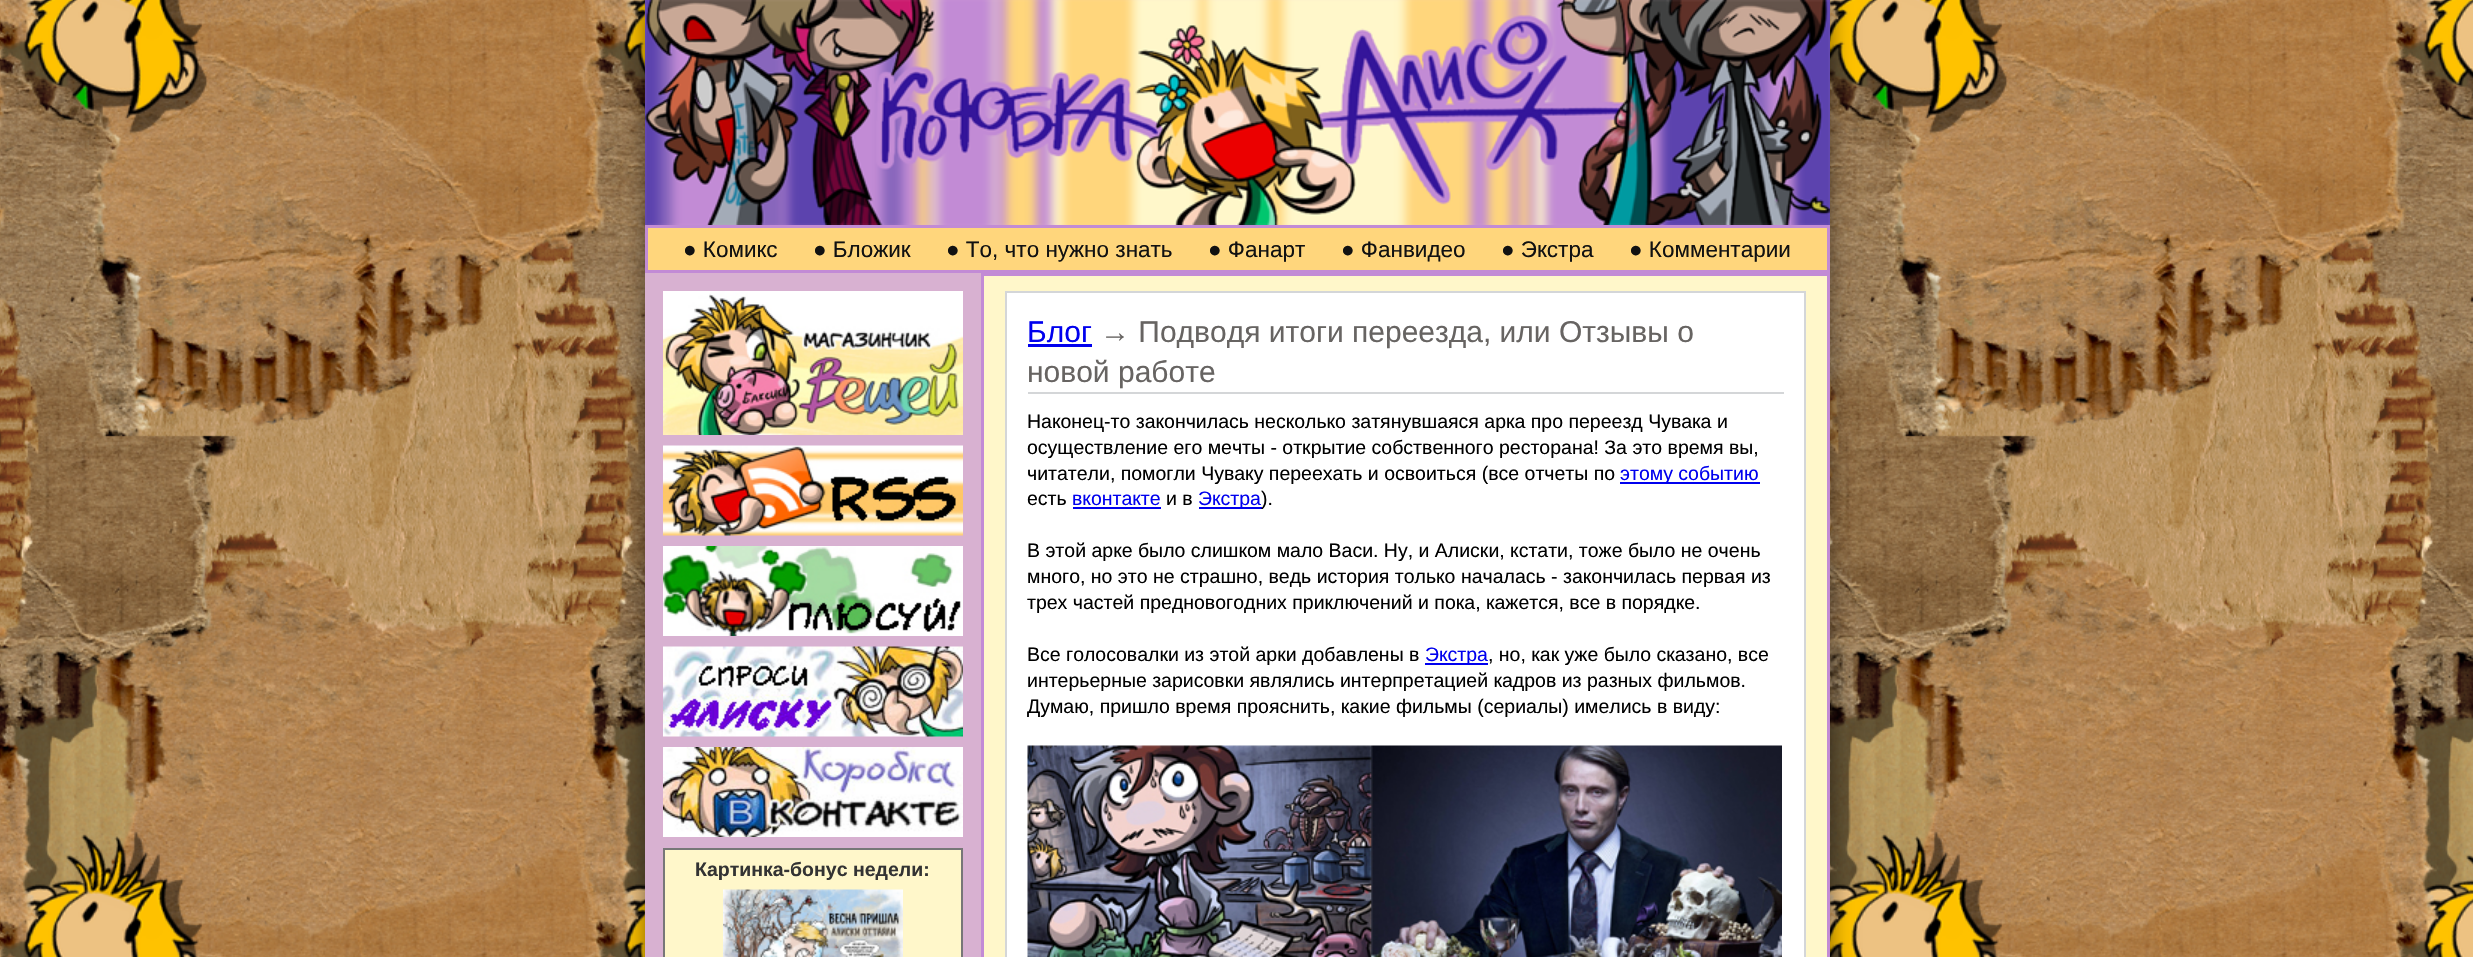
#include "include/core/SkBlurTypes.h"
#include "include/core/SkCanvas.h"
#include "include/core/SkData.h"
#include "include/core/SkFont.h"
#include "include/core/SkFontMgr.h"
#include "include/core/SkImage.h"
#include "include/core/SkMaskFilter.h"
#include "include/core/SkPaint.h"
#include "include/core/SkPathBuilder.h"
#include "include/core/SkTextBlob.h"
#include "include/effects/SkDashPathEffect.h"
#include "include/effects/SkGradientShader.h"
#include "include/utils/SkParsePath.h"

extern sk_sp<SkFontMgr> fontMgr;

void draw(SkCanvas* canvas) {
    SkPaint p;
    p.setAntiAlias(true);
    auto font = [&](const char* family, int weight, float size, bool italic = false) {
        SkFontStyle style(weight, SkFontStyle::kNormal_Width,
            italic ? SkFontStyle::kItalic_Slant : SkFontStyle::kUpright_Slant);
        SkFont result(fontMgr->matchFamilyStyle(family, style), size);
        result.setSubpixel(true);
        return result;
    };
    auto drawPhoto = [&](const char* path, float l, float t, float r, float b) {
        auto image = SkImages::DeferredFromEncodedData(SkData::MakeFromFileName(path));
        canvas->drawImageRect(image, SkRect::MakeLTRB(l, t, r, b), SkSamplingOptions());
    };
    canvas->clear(0xFFFFFFFF);
    drawPhoto("media/1.png", 0, 0, 2473, 957);
    p.setColor(0x80000000);
    p.setMaskFilter(SkMaskFilter::MakeBlur(kNormal_SkBlurStyle, 11));
    canvas->drawRect(SkRect::MakeLTRB(645, 0, 1830, 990), p);
    p.setMaskFilter(nullptr);
    p.setColor(0xFFD8B1D1);
    canvas->drawRect(SkRect::MakeLTRB(645, 0, 1830, 957), p);
    drawPhoto("media/2.png", 645, 0, 1830, 225);
    p.setColor(0xFFFFD67C);
    canvas->drawRect(SkRect::MakeLTRB(646.5f, 226.5f, 1828.5f, 271.5f), p);
    p.setStyle(SkPaint::kStroke_Style);
    p.setStrokeWidth(3);
    p.setColor(0xFFC28BD5);
    canvas->drawRect(SkRect::MakeLTRB(646.5f, 226.5f, 1828.5f, 271.5f), p);
    auto font1 = font("Liberation Sans", 400, 22.5f);
    p.setStyle(SkPaint::kFill_Style);
    p.setColor(0xFF111111);
    {
        const struct { const char* s; float x, y; } items[] = {
            {"● Комикс", 683, 257},
            {"● Бложик", 813, 257},
            {"● То, что нужно знать", 946, 257},
            {"● Фанарт", 1208, 257},
            {"● Фанвидео", 1341, 257},
            {"● Экстра", 1501, 257},
            {"● Комментарии", 1629, 257},
        };
        for (auto [s, x, y] : items) {
            canvas->drawString(s, x, y, font1, p);
        }
    }
    p.setColor(0xFFFFF7CA);
    canvas->drawRect(SkRect::MakeLTRB(982.5f, 274.5f, 1828.5f, 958.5f), p);
    p.setStyle(SkPaint::kStroke_Style);
    p.setColor(0xFFC28BD5);
    canvas->drawRect(SkRect::MakeLTRB(982.5f, 274.5f, 1828.5f, 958.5f), p);
    p.setStyle(SkPaint::kFill_Style);
    p.setColor(0xFFFFFFFF);
    canvas->drawRect(SkRect::MakeLTRB(1006, 292, 1805, 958), p);
    p.setStyle(SkPaint::kStroke_Style);
    p.setStrokeWidth(2);
    p.setColor(0xFFD4D6D8);
    canvas->drawRect(SkRect::MakeLTRB(1006, 292, 1805, 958), p);
    p.setStyle(SkPaint::kFill_Style);
    canvas->drawRect(SkRect::MakeLTRB(1028, 392, 1784, 394), p);
    auto font2 = font("Liberation Sans", 400, 30);
    p.setColor(0xFF0000EE);
    canvas->drawString("Блог", 1027, 342, font2, p);
    canvas->drawRect(SkRect::MakeLTRB(1028, 344, 1092, 347), p);
    p.setColor(0xFF676462);
    canvas->drawString("→ Подводя итоги переезда, или Отзывы о", 1100, 342, font2, p);
    canvas->drawString("новой работе", 1027, 382, font2, p);
    auto font3 = font("Liberation Sans", 400, 19.5f);
    p.setColor(0xFF000000);
    {
        const struct { const char* s; float x, y; } items[] = {
            {"Наконец-то закончилась несколько затянувшаяся арка про переезд Чувака и", 1027, 428},
            {"осуществление его мечты - открытие собственного ресторана! За это время вы,", 1027, 454},
            {"читатели, помогли Чуваку переехать и освоиться (все отчеты по", 1027, 480},
        };
        for (auto [s, x, y] : items) {
            canvas->drawString(s, x, y, font3, p);
        }
    }
    p.setColor(0xFF0000EE);
    canvas->drawRect(SkRect::MakeLTRB(1620, 482, 1760, 484), p);
    canvas->drawString("этому событию", 1620, 480, font3, p);
    p.setColor(0xFF000000);
    canvas->drawString("есть", 1027, 505, font3, p);
    p.setColor(0xFF0000EE);
    canvas->drawString("вконтакте", 1072, 505, font3, p);
    canvas->drawRect(SkRect::MakeLTRB(1073, 507, 1161, 509), p);
    p.setColor(0xFF000000);
    canvas->drawString("и в", 1166, 505, font3, p);
    p.setColor(0xFF0000EE);
    canvas->drawRect(SkRect::MakeLTRB(1199, 507, 1262, 509), p);
    canvas->drawString("Экстра", 1198, 505, font3, p);
    p.setColor(0xFF000000);
    {
        const struct { const char* s; float x, y; } items[] = {
            {").", 1261, 505},
            {"В этой арке было слишком мало Васи. Ну, и Алиски, кстати, тоже было не очень", 1027, 557},
            {"много, но это не страшно, ведь история только началась - закончилась первая из", 1027, 583},
            {"трех частей предновогодних приключений и пока, кажется, все в порядке.", 1027, 609},
            {"Все голосовалки из этой арки добавлены в", 1027, 661},
        };
        for (auto [s, x, y] : items) {
            canvas->drawString(s, x, y, font3, p);
        }
    }
    p.setColor(0xFF0000EE);
    canvas->drawRect(SkRect::MakeLTRB(1425, 663, 1488, 665), p);
    canvas->drawString("Экстра", 1425, 661, font3, p);
    p.setColor(0xFF000000);
    {
        const struct { const char* s; float x, y; } items[] = {
            {", но, как уже было сказано, все", 1488, 661},
            {"интерьерные зарисовки являлись интерпретацией кадров из разных фильмов.", 1027, 687},
            {"Думаю, пришло время прояснить, какие фильмы (сериалы) имелись в виду:", 1027, 713},
        };
        for (auto [s, x, y] : items) {
            canvas->drawString(s, x, y, font3, p);
        }
    }
    drawPhoto("media/3.png", 1027, 745, 1782, 957);
    drawPhoto("media/4.png", 663, 291, 963, 435);
    drawPhoto("media/5.png", 663, 445, 963, 536);
    drawPhoto("media/6.png", 663, 546, 963, 636);
    drawPhoto("media/7.png", 663, 646, 963, 737);
    drawPhoto("media/8.png", 663, 747, 963, 837);
    p.setColor(0xFFFFF7CA);
    canvas->drawRect(SkRect::MakeLTRB(664, 849, 962, 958), p);
    p.setStyle(SkPaint::kStroke_Style);
    p.setColor(0xFF777777);
    canvas->drawRect(SkRect::MakeLTRB(664, 849, 962, 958), p);
    auto font4 = font("Liberation Sans", 700, 19.5f);
    p.setStyle(SkPaint::kFill_Style);
    p.setColor(0xFF333333);
    canvas->drawString("Картинка-бонус недели:", 695, 876, font4, p);
    drawPhoto("media/9.png", 723, 889, 903, 957);
}
